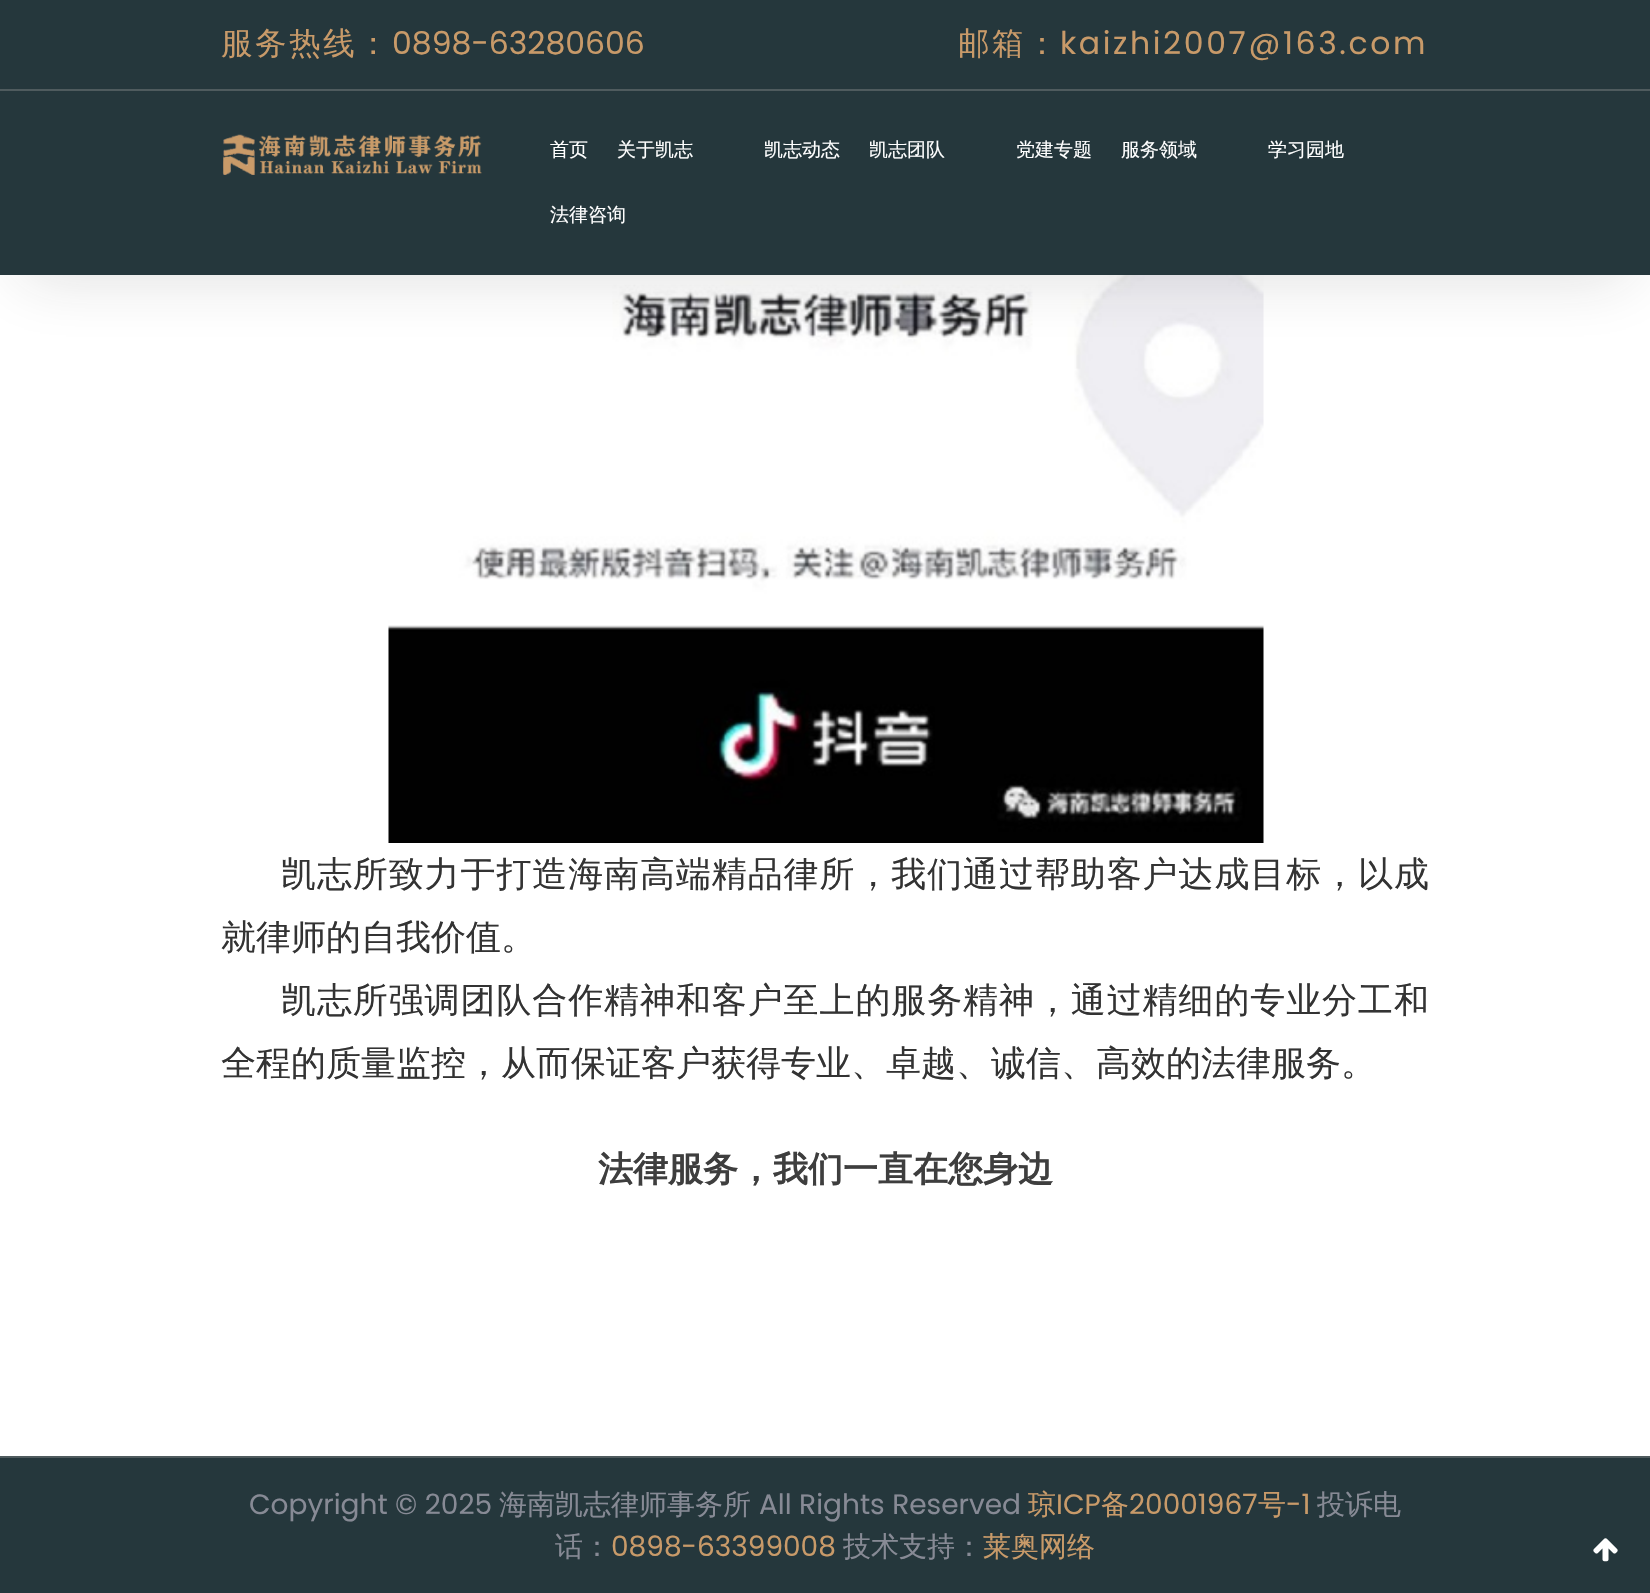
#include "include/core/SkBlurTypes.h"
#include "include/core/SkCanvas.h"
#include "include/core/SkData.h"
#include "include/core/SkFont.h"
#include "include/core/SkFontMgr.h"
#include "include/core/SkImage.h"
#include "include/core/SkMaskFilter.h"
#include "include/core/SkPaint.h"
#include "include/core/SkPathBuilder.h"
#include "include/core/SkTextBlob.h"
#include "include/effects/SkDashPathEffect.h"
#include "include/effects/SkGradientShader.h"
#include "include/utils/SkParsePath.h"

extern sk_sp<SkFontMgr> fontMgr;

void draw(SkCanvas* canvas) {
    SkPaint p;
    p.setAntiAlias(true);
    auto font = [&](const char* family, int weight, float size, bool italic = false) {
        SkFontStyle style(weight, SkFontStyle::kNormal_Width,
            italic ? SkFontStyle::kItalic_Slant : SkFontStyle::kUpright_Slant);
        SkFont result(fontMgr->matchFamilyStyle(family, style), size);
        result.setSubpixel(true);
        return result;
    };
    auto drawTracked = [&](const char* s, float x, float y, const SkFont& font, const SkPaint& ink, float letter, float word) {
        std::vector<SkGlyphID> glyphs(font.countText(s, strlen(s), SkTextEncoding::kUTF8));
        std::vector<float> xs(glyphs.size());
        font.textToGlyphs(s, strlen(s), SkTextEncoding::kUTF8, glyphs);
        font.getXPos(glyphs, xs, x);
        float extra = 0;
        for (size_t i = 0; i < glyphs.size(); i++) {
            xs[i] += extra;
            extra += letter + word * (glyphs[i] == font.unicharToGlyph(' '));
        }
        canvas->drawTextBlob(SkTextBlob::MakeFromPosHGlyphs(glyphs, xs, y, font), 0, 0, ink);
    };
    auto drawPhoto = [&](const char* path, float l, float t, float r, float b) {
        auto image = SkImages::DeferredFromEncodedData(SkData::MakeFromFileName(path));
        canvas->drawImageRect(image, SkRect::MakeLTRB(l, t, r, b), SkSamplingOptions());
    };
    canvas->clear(0xFFFFFFFF);
    drawPhoto("media/2.png", 388, 275, 1264, 843);
    p.setColor(0x26232323);
    p.setMaskFilter(SkMaskFilter::MakeBlur(kNormal_SkBlurStyle, 30.5f));
    canvas->drawRect(SkRect::MakeLTRB(21, 44, 1629, 277), p);
    p.setMaskFilter(nullptr);
    p.setColor(0xFF25373C);
    canvas->drawRect(SkRect::MakeLTRB(0, 0, 1650, 275), p);
    p.setColor(0xFF4F5B5E);
    canvas->drawRect(SkRect::MakeLTRB(0, 89, 1650, 91), p);
    auto font1 = font("WenQuanYi Zen Hei", 500, 31.5f);
    p.setColor(0xFFC89A69);
    drawTracked("服务热线：", 221, 54, font1, p, 2.6f, 0);
    auto font2 = font("Poppins", 400, 31.5f);
    canvas->drawString("0898-63280606", 392, 54, font2, p);
    drawTracked("邮箱：", 958, 54, font1, p, 2.6f, 0);
    drawTracked("kaizhi2007@163.com", 1060, 54, font2, p, 2.6f, 0);
    drawPhoto("media/1.png", 222, 134, 482, 175);
    auto font3 = font("WenQuanYi Zen Hei", 500, 19);
    p.setColor(0xFFFFFFFF);
    {
        const struct { const char* s; float x, y; } items[] = {
            {"首页", 550, 156},
            {"关于凯志", 617, 156},
            {"凯志动态", 764, 156},
            {"凯志团队", 869, 156},
            {"党建专题", 1016, 156},
            {"服务领域", 1121, 156},
            {"学习园地", 1268, 156},
            {"法律咨询", 550, 221},
        };
        for (auto [s, x, y] : items) {
            canvas->drawString(s, x, y, font3, p);
        }
    }
    auto font4 = font("WenQuanYi Zen Hei", 500, 35);
    p.setColor(0xFF333333);
    drawTracked("凯志所致力于打造海南高端精品律所，我们通过帮助客户达成目标，以成", 281, 886, font4, p, 0.9f, 0);
    canvas->drawString("就律师的自我价值。", 221, 949, font4, p);
    drawTracked("凯志所强调团队合作精神和客户至上的服务精神，通过精细的专业分工和", 281, 1012, font4, p, 0.9f, 0);
    canvas->drawString("全程的质量监控，从而保证客户获得专业、卓越、诚信、高效的法律服务。", 221, 1075, font4, p);
    auto font5 = font("WenQuanYi Zen Hei", 700, 35);
    p.setColor(0xFF3E3E3E);
    canvas->drawString("法律服务，我们一直在您身边", 598, 1181, font5, p);
    p.setColor(0xFF25373C);
    canvas->drawRect(SkRect::MakeLTRB(0, 1458, 1650, 1593), p);
    p.setColor(0xFF4F5B5E);
    canvas->drawRect(SkRect::MakeLTRB(0, 1456, 1650, 1458), p);
    auto font6 = font("Poppins", 400, 28);
    p.setColor(0xFF878A95);
    canvas->drawString("Copyright © 2025", 249, 1514, font6, p);
    auto font7 = font("WenQuanYi Zen Hei", 500, 28);
    canvas->drawString("海南凯志律师事务所", 499, 1514, font7, p);
    canvas->drawString("All Rights Reserved", 759, 1514, font6, p);
    p.setColor(0xFFC89A69);
    canvas->drawString("琼", 1028, 1514, font7, p);
    canvas->drawString("ICP", 1056, 1514, font6, p);
    canvas->drawString("备", 1101, 1514, font7, p);
    canvas->drawString("20001967", 1129, 1514, font6, p);
    canvas->drawString("号", 1258, 1514, font7, p);
    canvas->drawString("-1", 1286, 1514, font6, p);
    p.setColor(0xFF878A95);
    canvas->drawString("投诉电", 1317, 1514, font7, p);
    canvas->drawString("话：", 555, 1556, font7, p);
    p.setColor(0xFFC89A69);
    canvas->drawString("0898-63399008", 611, 1556, font6, p);
    p.setColor(0xFF878A95);
    canvas->drawString("技术支持：", 843, 1556, font7, p);
    p.setColor(0xFFC89A69);
    canvas->drawString("莱奥网络", 983, 1556, font7, p);
    drawPhoto("media/3.png", 1593, 1538, 1618, 1562);
}
